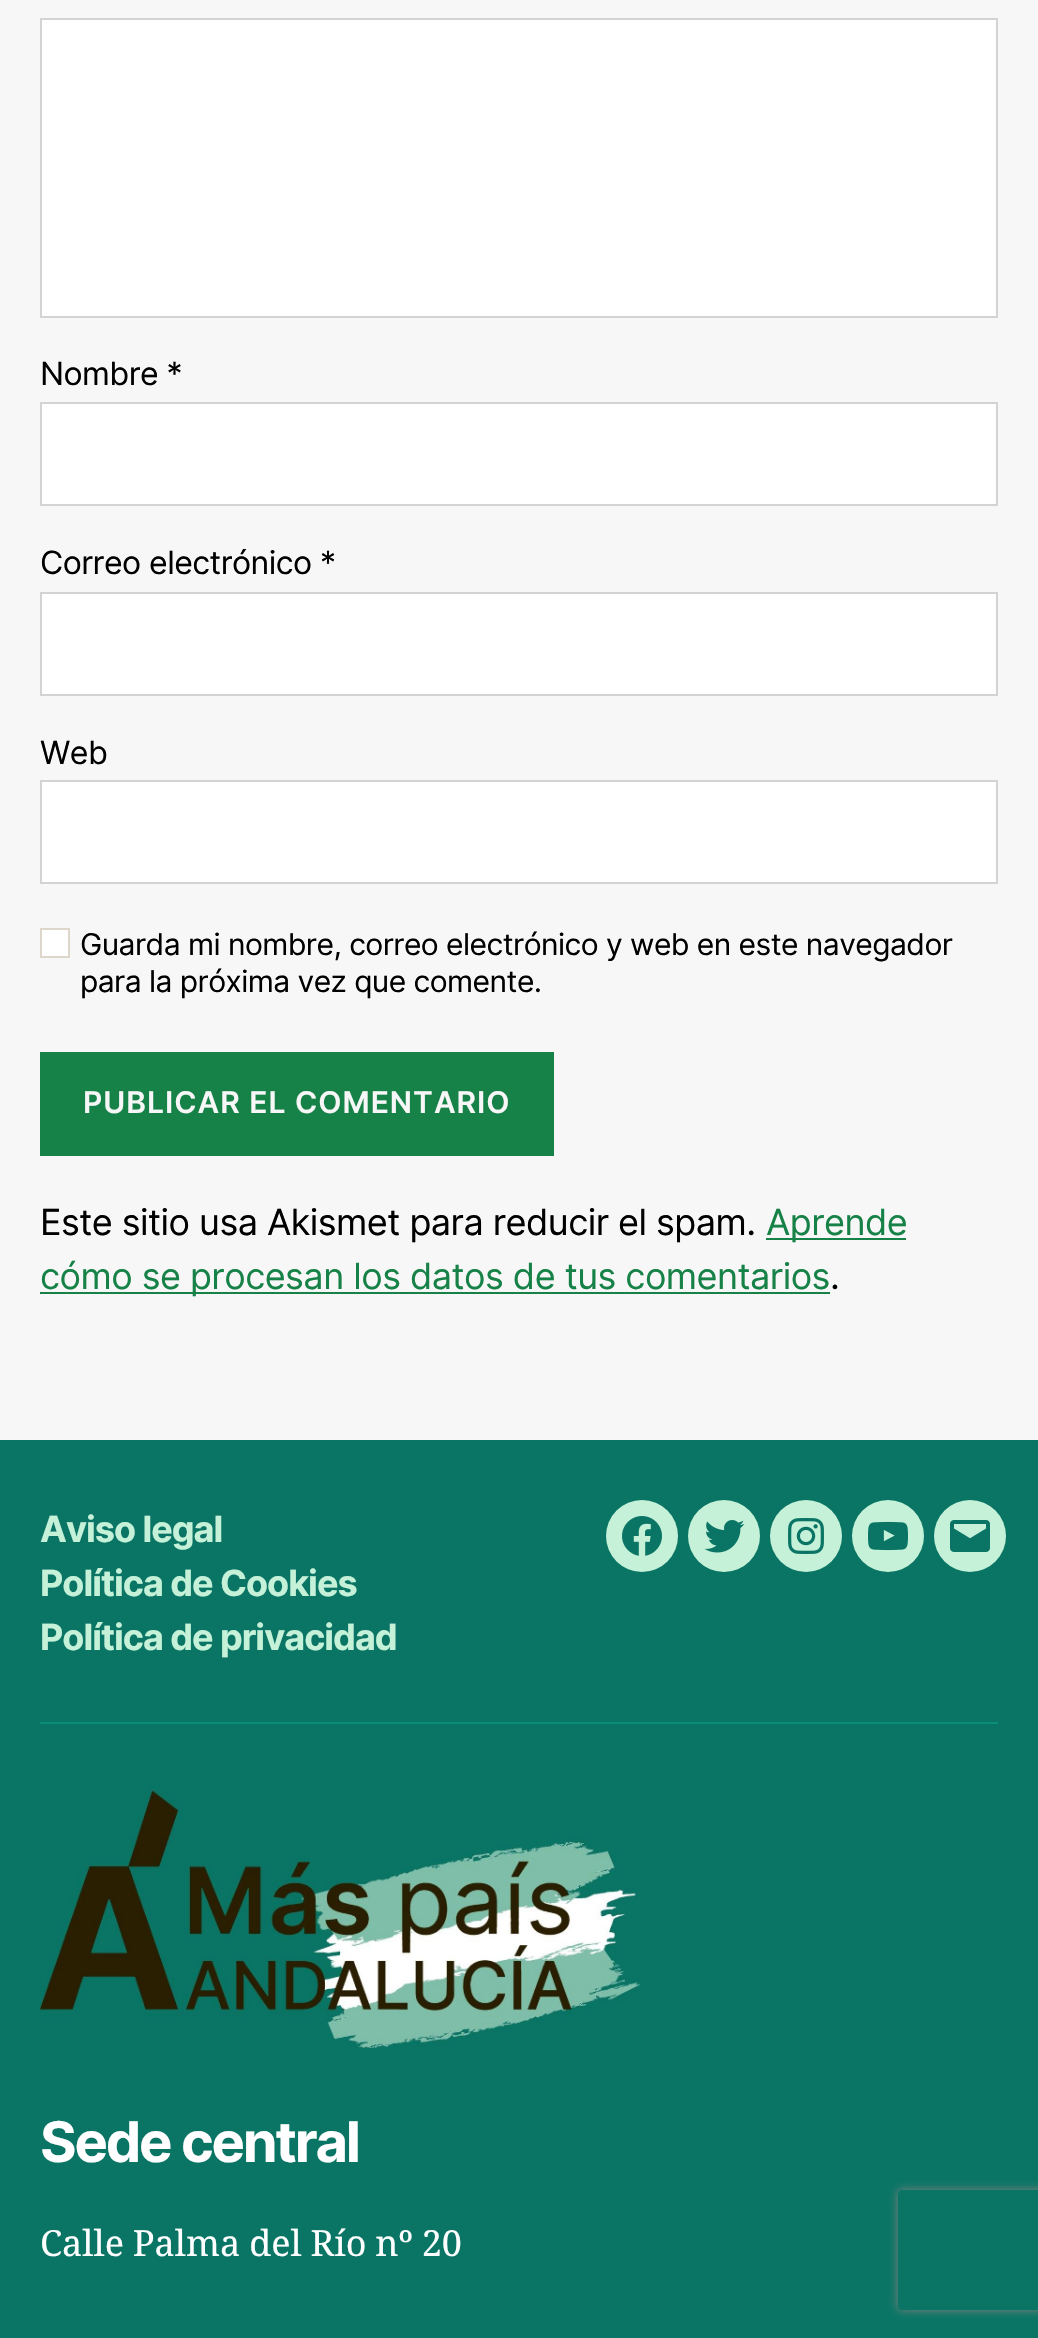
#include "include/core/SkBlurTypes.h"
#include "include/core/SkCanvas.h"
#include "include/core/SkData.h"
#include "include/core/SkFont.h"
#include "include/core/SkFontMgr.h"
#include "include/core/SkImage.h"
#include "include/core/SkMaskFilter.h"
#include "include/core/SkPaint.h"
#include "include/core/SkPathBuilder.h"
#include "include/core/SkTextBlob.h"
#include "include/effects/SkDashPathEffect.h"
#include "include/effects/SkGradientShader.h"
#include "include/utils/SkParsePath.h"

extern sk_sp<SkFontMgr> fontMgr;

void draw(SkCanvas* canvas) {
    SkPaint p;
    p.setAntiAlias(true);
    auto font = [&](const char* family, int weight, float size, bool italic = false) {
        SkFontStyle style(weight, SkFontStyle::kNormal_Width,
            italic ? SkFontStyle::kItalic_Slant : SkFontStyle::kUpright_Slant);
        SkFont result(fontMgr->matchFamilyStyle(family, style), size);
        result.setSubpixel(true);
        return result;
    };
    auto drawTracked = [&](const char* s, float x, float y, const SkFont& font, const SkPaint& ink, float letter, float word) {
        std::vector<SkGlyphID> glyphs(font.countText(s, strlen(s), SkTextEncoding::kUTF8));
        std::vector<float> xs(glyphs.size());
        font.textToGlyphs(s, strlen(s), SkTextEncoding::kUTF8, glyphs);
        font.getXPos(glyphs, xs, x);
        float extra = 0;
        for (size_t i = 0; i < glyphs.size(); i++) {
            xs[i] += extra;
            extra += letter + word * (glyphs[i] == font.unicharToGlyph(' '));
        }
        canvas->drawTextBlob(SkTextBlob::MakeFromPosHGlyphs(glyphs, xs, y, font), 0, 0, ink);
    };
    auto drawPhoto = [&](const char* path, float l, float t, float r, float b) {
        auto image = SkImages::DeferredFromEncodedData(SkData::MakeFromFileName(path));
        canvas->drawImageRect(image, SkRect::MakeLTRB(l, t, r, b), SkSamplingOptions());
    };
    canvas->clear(0xFFF7F7F7);
    p.setColor(0xFFFFFFFF);
    canvas->drawRect(SkRect::MakeLTRB(41, 19, 997, 317), p);
    p.setStyle(SkPaint::kStroke_Style);
    p.setStrokeWidth(2);
    p.setColor(0xFFD3D3D3);
    canvas->drawRect(SkRect::MakeLTRB(41, 19, 997, 317), p);
    auto font1 = font("Inter", 400, 32);
    p.setStyle(SkPaint::kFill_Style);
    p.setColor(0xFF000000);
    drawTracked("Nombre *", 40, 385, font1, p, -0.55f, 0);
    p.setColor(0xFFFFFFFF);
    canvas->drawRect(SkRect::MakeLTRB(41, 403, 997, 505), p);
    p.setStyle(SkPaint::kStroke_Style);
    p.setColor(0xFFD3D3D3);
    canvas->drawRect(SkRect::MakeLTRB(41, 403, 997, 505), p);
    p.setStyle(SkPaint::kFill_Style);
    p.setColor(0xFF000000);
    drawTracked("Correo electrónico *", 40, 574, font1, p, -0.55f, 0);
    p.setColor(0xFFFFFFFF);
    canvas->drawRect(SkRect::MakeLTRB(41, 593, 997, 695), p);
    p.setStyle(SkPaint::kStroke_Style);
    p.setColor(0xFFD3D3D3);
    canvas->drawRect(SkRect::MakeLTRB(41, 593, 997, 695), p);
    p.setStyle(SkPaint::kFill_Style);
    p.setColor(0xFF000000);
    drawTracked("Web", 40, 764, font1, p, -0.55f, 0);
    p.setColor(0xFFFFFFFF);
    canvas->drawRect(SkRect::MakeLTRB(41, 781, 997, 883), p);
    p.setStyle(SkPaint::kStroke_Style);
    p.setColor(0xFFD3D3D3);
    canvas->drawRect(SkRect::MakeLTRB(41, 781, 997, 883), p);
    p.setStyle(SkPaint::kFill_Style);
    p.setColor(0xFFFFFFFF);
    canvas->drawRect(SkRect::MakeLTRB(41, 929, 69, 957), p);
    p.setStyle(SkPaint::kStroke_Style);
    p.setColor(0xFFDCD7CA);
    canvas->drawRect(SkRect::MakeLTRB(41, 929, 69, 957), p);
    auto font2 = font("Inter", 400, 30);
    p.setStyle(SkPaint::kFill_Style);
    p.setColor(0xFF000000);
    drawTracked("Guarda mi nombre, correo electrónico y web en este navegador", 80, 955, font2, p, -0.55f, 0);
    drawTracked("para la próxima vez que comente.", 80, 992, font2, p, -0.55f, 0);
    p.setColor(0xFF168247);
    canvas->drawRect(SkRect::MakeLTRB(40, 1052, 554, 1156), p);
    auto font3 = font("Inter", 600, 30);
    p.setColor(0xFFF7F7F7);
    drawTracked("PUBLICAR EL COMENTARIO", 83, 1113, font3, p, 1, 0);
    auto font4 = font("Inter", 400, 36);
    p.setColor(0xFF000000);
    drawTracked("Este sitio usa Akismet para reducir el spam.", 40, 1235, font4, p, -0.55f, 0);
    p.setColor(0xFF168247);
    canvas->drawRect(SkRect::MakeLTRB(766, 1238, 906, 1240), p);
    drawTracked("Aprende", 766, 1235, font4, p, -0.55f, 0);
    canvas->drawRect(SkRect::MakeLTRB(40, 1292, 830, 1294), p);
    drawTracked("cómo se procesan los datos de tus comentarios", 40, 1289, font4, p, -0.55f, 0);
    p.setColor(0xFF000000);
    drawTracked(".", 830, 1289, font4, p, -0.55f, 0);
    p.setColor(0xFF0A7565);
    canvas->drawRect(SkRect::MakeLTRB(0, 1440, 1038, 2338), p);
    p.setColor(0xFF0A8E7A);
    canvas->drawRect(SkRect::MakeLTRB(40, 1722, 998, 1724), p);
    auto font5 = font("Inter", 700, 36);
    p.setColor(0xFFC5F1D9);
    {
        const struct { const char* s; float x, y; } items[] = {
            {"Aviso legal", 40, 1542},
            {"Política de Cookies", 40, 1596},
            {"Política de privacidad", 40, 1650},
        };
        for (auto [s, x, y] : items) {
            drawTracked(s, x, y, font5, p, -1, 0);
        }
    }
    canvas->drawCircle(642, 1536, 36, p);
    drawPhoto("media/1.png", 622, 1516, 662, 1556);
    canvas->drawCircle(724, 1536, 36, p);
    drawPhoto("media/2.png", 704, 1520, 745, 1553);
    canvas->drawCircle(806, 1536, 36, p);
    drawPhoto("media/3.png", 788, 1518, 824, 1554);
    canvas->drawCircle(888, 1536, 36, p);
    drawPhoto("media/4.png", 868, 1521, 908, 1551);
    canvas->drawCircle(970, 1536, 36, p);
    drawPhoto("media/5.png", 950, 1520, 990, 1552);
    drawPhoto("media/6.png", 40, 1784, 640, 2048);
    auto font6 = font("Inter", 700, 56);
    p.setColor(0xFFFFFFFF);
    drawTracked("Sede central", 40, 2162, font6, p, -2.25f, 0);
    auto font7 = font("Noto Serif", 400, 36);
    drawTracked("Calle Palma del Río nº 20", 40, 2256, font7, p, 0, -0.5f);
    canvas->save();
    canvas->clipPath(SkPathBuilder(SkPathFillType::kEvenOdd).moveTo(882, 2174).lineTo(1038, 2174).lineTo(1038, 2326).lineTo(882, 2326).close().moveTo(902, 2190).lineTo(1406, 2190).cubicTo(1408, 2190, 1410, 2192, 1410, 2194).lineTo(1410, 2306).cubicTo(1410, 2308, 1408, 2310, 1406, 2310).lineTo(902, 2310).cubicTo(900, 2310, 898, 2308, 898, 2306).lineTo(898, 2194).cubicTo(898, 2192, 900, 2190, 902, 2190).close().detach(), true);
    p.setColor(0xFF808080);
    p.setMaskFilter(SkMaskFilter::MakeBlur(kNormal_SkBlurStyle, 5));
    canvas->drawRoundRect(SkRect::MakeLTRB(898, 2190, 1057, 2310), 4, 4, p);
    p.setMaskFilter(nullptr);
    canvas->restore();
}
